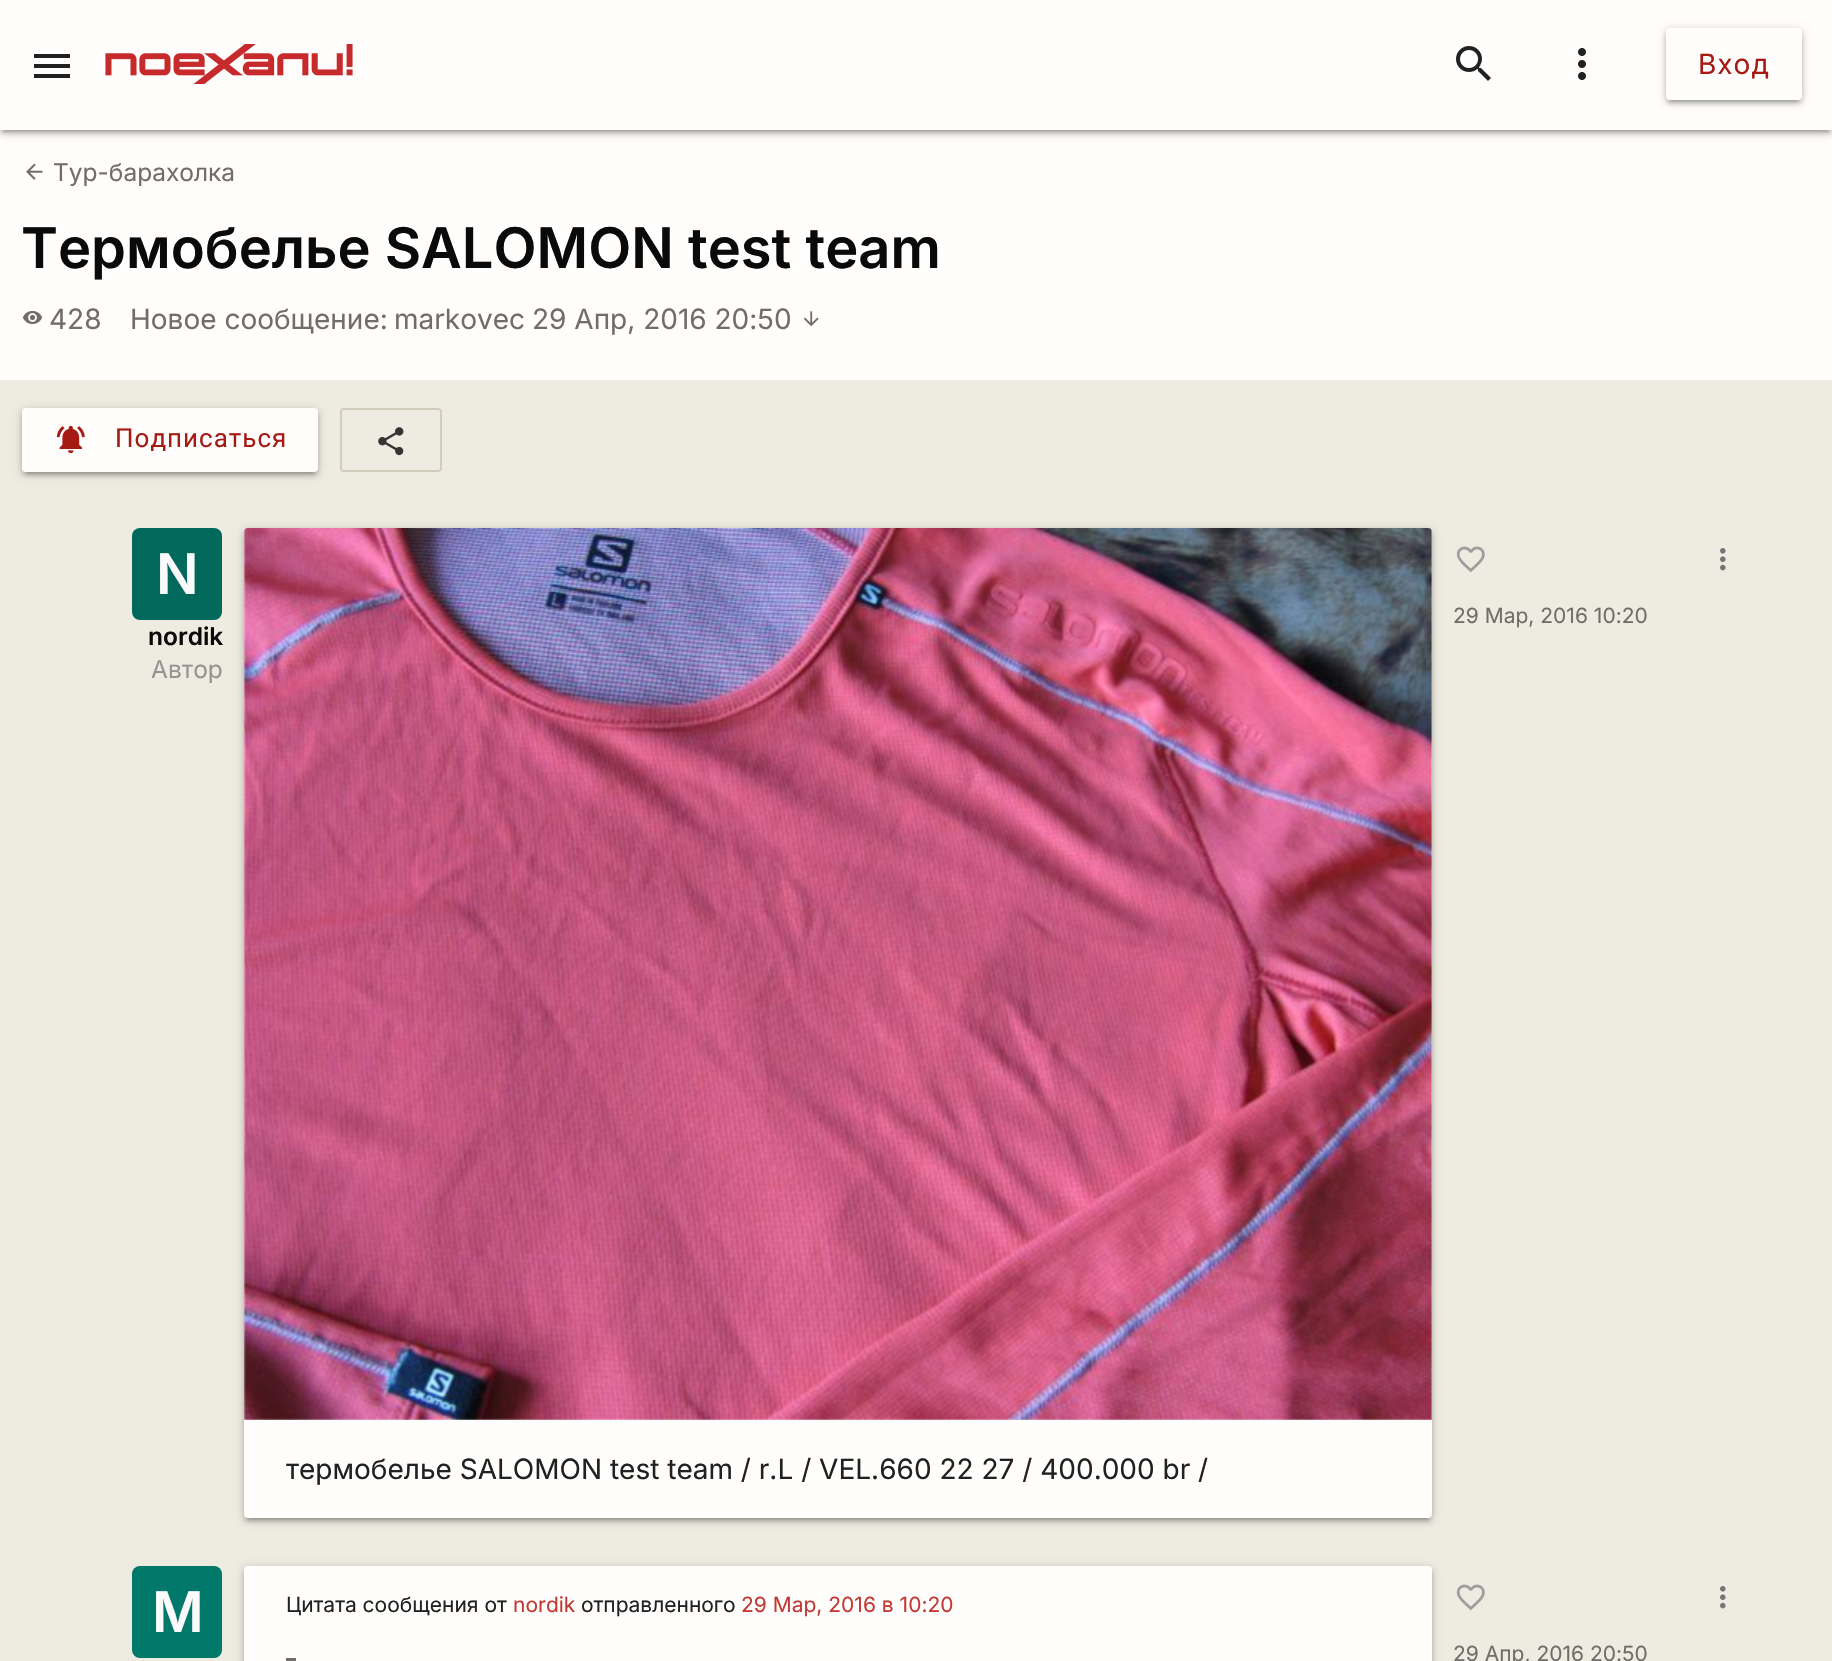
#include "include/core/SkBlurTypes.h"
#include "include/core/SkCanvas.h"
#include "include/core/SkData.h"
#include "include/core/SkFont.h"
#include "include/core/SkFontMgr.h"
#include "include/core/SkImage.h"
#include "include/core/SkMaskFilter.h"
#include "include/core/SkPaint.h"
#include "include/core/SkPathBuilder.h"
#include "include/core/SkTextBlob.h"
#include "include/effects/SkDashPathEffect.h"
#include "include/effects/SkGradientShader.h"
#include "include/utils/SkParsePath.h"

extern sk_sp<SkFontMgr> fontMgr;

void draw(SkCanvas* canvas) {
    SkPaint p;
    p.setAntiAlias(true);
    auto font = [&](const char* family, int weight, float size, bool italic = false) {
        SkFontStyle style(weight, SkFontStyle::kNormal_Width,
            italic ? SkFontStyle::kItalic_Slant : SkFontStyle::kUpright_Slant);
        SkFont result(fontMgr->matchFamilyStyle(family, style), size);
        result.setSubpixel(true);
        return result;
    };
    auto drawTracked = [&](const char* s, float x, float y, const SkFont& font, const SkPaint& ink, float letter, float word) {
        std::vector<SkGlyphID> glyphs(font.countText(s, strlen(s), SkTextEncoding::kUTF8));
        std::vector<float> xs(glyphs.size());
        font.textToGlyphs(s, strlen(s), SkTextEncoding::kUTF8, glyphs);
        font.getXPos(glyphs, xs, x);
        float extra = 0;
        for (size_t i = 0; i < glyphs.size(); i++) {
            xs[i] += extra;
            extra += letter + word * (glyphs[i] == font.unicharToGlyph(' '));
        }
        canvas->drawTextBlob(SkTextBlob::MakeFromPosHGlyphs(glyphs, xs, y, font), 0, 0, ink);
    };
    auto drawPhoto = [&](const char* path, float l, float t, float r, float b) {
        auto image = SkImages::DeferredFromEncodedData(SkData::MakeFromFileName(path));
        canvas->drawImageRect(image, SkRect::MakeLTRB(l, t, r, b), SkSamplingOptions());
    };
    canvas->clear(0xFFEEEBE1);
    p.setColor(0xFFFFFEFC);
    canvas->drawRect(SkRect::MakeLTRB(0, 130, 1832, 380), p);
    p.setColor(0x33000000);
    p.setMaskFilter(SkMaskFilter::MakeBlur(kNormal_SkBlurStyle, 5));
    canvas->drawRect(SkRect::MakeLTRB(0, 2, 1832, 132), p);
    p.setMaskFilter(nullptr);
    p.setColor(0x1F000000);
    p.setMaskFilter(SkMaskFilter::MakeBlur(kNormal_SkBlurStyle, 1));
    canvas->drawRect(SkRect::MakeLTRB(4, 10, 1828, 132), p);
    p.setMaskFilter(nullptr);
    p.setColor(0x24000000);
    p.setMaskFilter(SkMaskFilter::MakeBlur(kNormal_SkBlurStyle, 2));
    canvas->drawRect(SkRect::MakeLTRB(0, 4, 1832, 134), p);
    p.setMaskFilter(nullptr);
    p.setColor(0xFFFFFEFC);
    canvas->drawRect(SkRect::MakeLTRB(0, 0, 1832, 130), p);
    p.setColor(0xFF212121);
    canvas->drawPath(SkPathBuilder().moveTo(34, 54).lineTo(70, 54).lineTo(70, 58).lineTo(34, 58).close().moveTo(34, 68).lineTo(34, 64).lineTo(70, 64).lineTo(70, 68).close().moveTo(34, 78).lineTo(34, 74).lineTo(70, 74).lineTo(70, 78).close().detach(), p);
    drawPhoto("media/1.png", 105, 44, 353, 84);
    drawPhoto("media/2.png", 1456, 46, 1491, 81);
    drawPhoto("media/3.png", 1578, 48, 1586, 80);
    p.setColor(0x33000000);
    p.setMaskFilter(SkMaskFilter::MakeBlur(kNormal_SkBlurStyle, 5));
    canvas->drawRoundRect(SkRect::MakeLTRB(1666, 30, 1802, 102), 4, 4, p);
    p.setMaskFilter(nullptr);
    p.setColor(0x1F000000);
    p.setMaskFilter(SkMaskFilter::MakeBlur(kNormal_SkBlurStyle, 1));
    canvas->drawRect(SkRect::MakeLTRB(1670, 38, 1798, 102), p);
    p.setMaskFilter(nullptr);
    p.setColor(0x24000000);
    p.setMaskFilter(SkMaskFilter::MakeBlur(kNormal_SkBlurStyle, 2));
    canvas->drawRoundRect(SkRect::MakeLTRB(1666, 32, 1802, 104), 4, 4, p);
    p.setMaskFilter(nullptr);
    p.setColor(0xFFFFFEFC);
    canvas->drawRoundRect(SkRect::MakeLTRB(1666, 28, 1802, 100), 4, 4, p);
    auto font1 = font("Inter", 400, 28);
    p.setColor(0xFFA61A14);
    drawTracked("Вход", 1698, 74, font1, p, 1, 0);
    drawPhoto("media/4.png", 26, 163, 43, 180);
    auto font2 = font("Inter", 400, 24.5f);
    p.setColor(0xFF706E6B);
    canvas->drawString("Тур-барахолка", 53, 181, font2, p);
    auto font3 = font("Inter", 600, 56);
    p.setColor(0xFF0A0A0A);
    canvas->drawString("Термобелье SALOMON test team", 21, 268, font3, p);
    drawPhoto("media/5.png", 22, 310, 43, 325);
    p.setColor(0xFF706E6B);
    {
        const struct { const char* s; float x, y; } items[] = {
            {"428", 49, 329},
            {"Новое сообщение:", 130, 329},
            {"markovec", 394, 329},
            {"29 Апр, 2016 20:50", 532, 329},
        };
        for (auto [s, x, y] : items) {
            canvas->drawString(s, x, y, font1, p);
        }
    }
    drawPhoto("media/6.png", 803, 311, 819, 327);
    p.setColor(0x33000000);
    p.setMaskFilter(SkMaskFilter::MakeBlur(kNormal_SkBlurStyle, 5));
    canvas->drawRoundRect(SkRect::MakeLTRB(22, 410, 318, 474), 4, 4, p);
    p.setMaskFilter(nullptr);
    p.setColor(0x1F000000);
    p.setMaskFilter(SkMaskFilter::MakeBlur(kNormal_SkBlurStyle, 1));
    canvas->drawRect(SkRect::MakeLTRB(26, 418, 314, 474), p);
    p.setMaskFilter(nullptr);
    p.setColor(0x24000000);
    p.setMaskFilter(SkMaskFilter::MakeBlur(kNormal_SkBlurStyle, 2));
    canvas->drawRoundRect(SkRect::MakeLTRB(22, 412, 318, 476), 4, 4, p);
    p.setMaskFilter(nullptr);
    p.setColor(0xFFFFFEFC);
    canvas->drawRoundRect(SkRect::MakeLTRB(22, 408, 318, 472), 4, 4, p);
    drawPhoto("media/7.png", 56, 425, 85, 454);
    auto font4 = font("Roboto", 400, 26);
    p.setColor(0xFFA61A14);
    drawTracked("Подписаться", 115, 447, font4, p, 1, 0);
    p.setStyle(SkPaint::kStroke_Style);
    p.setStrokeWidth(2);
    p.setColor(0xFFD2CDBC);
    canvas->drawRoundRect(SkRect::MakeLTRB(341, 409, 441, 471), 3, 3, p);
    drawPhoto("media/8.png", 378, 427, 404, 456);
    p.setStyle(SkPaint::kFill_Style);
    p.setColor(0xFF00695C);
    canvas->drawRoundRect(SkRect::MakeLTRB(132, 528, 222, 620), 8, 8, p);
    p.setColor(0xFFFAFAFA);
    canvas->drawString("N", 156, 594, font3, p);
    auto font5 = font("Inter", 600, 24.5f);
    p.setColor(0xFF0A0A0A);
    canvas->drawString("nordik", 148, 645, font5, p);
    p.setColor(0xFF969492);
    canvas->drawString("Автор", 151, 678, font2, p);
    drawPhoto("media/9.png", 1720, 548, 1726, 571);
    drawPhoto("media/10.png", 1456, 546, 1485, 573);
    auto font6 = font("Inter", 400, 21);
    p.setColor(0xFF706E6B);
    canvas->drawString("29 Мар, 2016 10:20", 1453, 623, font6, p);
    p.setColor(0x33000000);
    p.setMaskFilter(SkMaskFilter::MakeBlur(kNormal_SkBlurStyle, 5));
    canvas->drawRoundRect(SkRect::MakeLTRB(244, 530, 1432, 1520), 4, 4, p);
    p.setMaskFilter(nullptr);
    p.setColor(0x1F000000);
    p.setMaskFilter(SkMaskFilter::MakeBlur(kNormal_SkBlurStyle, 1));
    canvas->drawRect(SkRect::MakeLTRB(248, 538, 1428, 1520), p);
    p.setMaskFilter(nullptr);
    p.setColor(0x24000000);
    p.setMaskFilter(SkMaskFilter::MakeBlur(kNormal_SkBlurStyle, 2));
    canvas->drawRoundRect(SkRect::MakeLTRB(244, 532, 1432, 1522), 4, 4, p);
    p.setMaskFilter(nullptr);
    p.setColor(0xFFFFFEFC);
    canvas->drawRoundRect(SkRect::MakeLTRB(244, 528, 1432, 1518), 4, 4, p);
    drawPhoto("media/11.png", 244, 528, 1432, 1420);
    p.setColor(0xFF212121);
    canvas->drawString("термобелье SALOMON test team / r.L / VEL.660 22 27 / 400.000 br /", 286, 1479, font1, p);
    p.setColor(0xFF00796B);
    canvas->drawRoundRect(SkRect::MakeLTRB(132, 1566, 222, 1658), 8, 8, p);
    p.setColor(0xFFFAFAFA);
    canvas->drawString("M", 152, 1632, font3, p);
    p.setColor(0x33000000);
    p.setMaskFilter(SkMaskFilter::MakeBlur(kNormal_SkBlurStyle, 5));
    canvas->drawRoundRect(SkRect::MakeLTRB(244, 1568, 1432, 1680), 4, 4, p);
    p.setMaskFilter(nullptr);
    p.setColor(0x24000000);
    p.setMaskFilter(SkMaskFilter::MakeBlur(kNormal_SkBlurStyle, 2));
    canvas->drawRoundRect(SkRect::MakeLTRB(244, 1570, 1432, 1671), 4, 4, p);
    p.setMaskFilter(nullptr);
    p.setColor(0xFFFFFEFC);
    canvas->drawRoundRect(SkRect::MakeLTRB(244, 1566, 1432, 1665), 4, 4, p);
    p.setColor(0xFF212121);
    canvas->drawString("Цитата сообщения от", 286, 1612, font6, p);
    p.setColor(0xFFC23934);
    canvas->drawString("nordik", 513, 1612, font6, p);
    p.setColor(0xFF212121);
    canvas->drawString("отправленного", 581, 1612, font6, p);
    p.setColor(0xFFC23934);
    canvas->drawString("29 Мар, 2016 в 10:20", 741, 1612, font6, p);
    p.setColor(0xFF706E6B);
    canvas->drawRect(SkRect::MakeLTRB(286, 1658, 296, 1661), p);
    drawPhoto("media/9.png", 1720, 1586, 1726, 1609);
    drawPhoto("media/10.png", 1456, 1584, 1485, 1611);
    canvas->drawString("29 Апр, 2016 20:50", 1453, 1661, font6, p);
}
